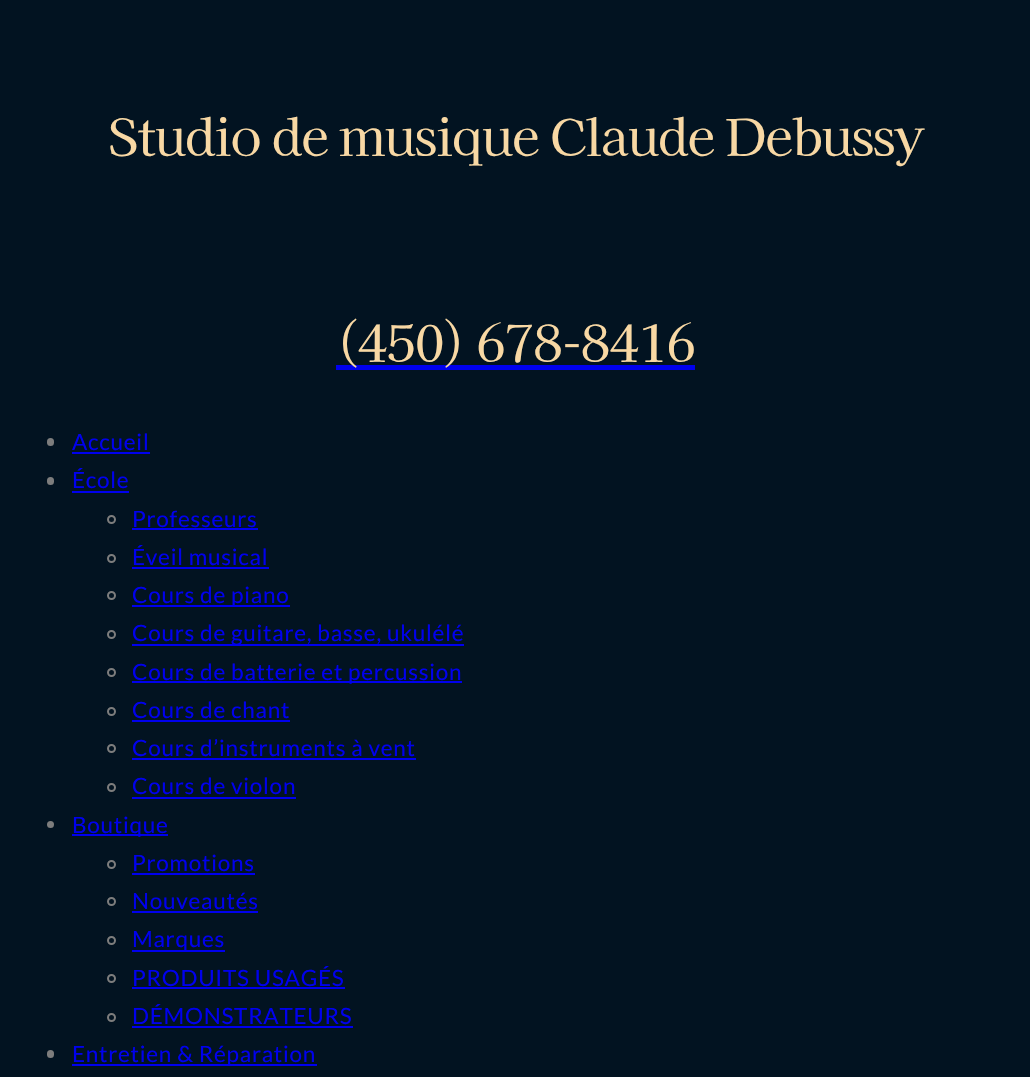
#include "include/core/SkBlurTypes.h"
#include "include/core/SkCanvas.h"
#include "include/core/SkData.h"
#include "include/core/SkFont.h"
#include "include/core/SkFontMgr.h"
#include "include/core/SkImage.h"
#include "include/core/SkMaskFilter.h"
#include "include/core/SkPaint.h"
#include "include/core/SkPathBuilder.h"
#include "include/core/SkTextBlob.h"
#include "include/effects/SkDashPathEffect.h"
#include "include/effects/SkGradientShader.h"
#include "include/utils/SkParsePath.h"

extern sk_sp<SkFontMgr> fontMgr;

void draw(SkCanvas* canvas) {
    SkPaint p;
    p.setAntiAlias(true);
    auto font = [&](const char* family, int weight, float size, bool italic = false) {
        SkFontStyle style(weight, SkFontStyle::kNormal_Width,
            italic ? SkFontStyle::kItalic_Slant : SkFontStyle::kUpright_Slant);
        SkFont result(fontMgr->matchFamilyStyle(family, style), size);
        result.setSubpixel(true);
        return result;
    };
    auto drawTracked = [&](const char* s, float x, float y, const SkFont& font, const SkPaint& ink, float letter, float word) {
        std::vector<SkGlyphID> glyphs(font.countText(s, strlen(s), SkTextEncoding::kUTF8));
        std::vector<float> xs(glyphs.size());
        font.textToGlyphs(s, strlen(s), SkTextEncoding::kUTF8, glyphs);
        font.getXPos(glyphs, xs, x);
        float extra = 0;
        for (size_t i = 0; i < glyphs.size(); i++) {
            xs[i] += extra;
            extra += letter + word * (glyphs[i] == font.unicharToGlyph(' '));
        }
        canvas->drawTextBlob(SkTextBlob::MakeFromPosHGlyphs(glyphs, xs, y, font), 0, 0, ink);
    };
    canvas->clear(0xFF021321);
    auto font1 = font("Kaisei Decol", 400, 51);
    p.setColor(0xFFF8D8A4);
    drawTracked("Studio de musique Claude Debussy", 108, 156, font1, p, -1.5f, 0);
    p.setColor(0xFF0000EE);
    canvas->drawRect(SkRect::MakeLTRB(336, 365, 695, 370), p);
    p.setColor(0xFFF8D8A4);
    drawTracked("(450) 678-8416", 336, 362, font1, p, -1.5f, 0);
    p.setColor(0xFF7D7D7D);
    canvas->drawRoundRect(SkRect::MakeLTRB(47, 438, 54, 446), 3.5f, 3.5f, p);
    auto font2 = font("Lato", 400, 22.5f);
    p.setColor(0xFF0000EE);
    drawTracked("Accueil", 72, 450, font2, p, 0.75f, 0);
    canvas->drawRect(SkRect::MakeLTRB(72, 452, 150, 454), p);
    p.setColor(0xFF7D7D7D);
    canvas->drawRoundRect(SkRect::MakeLTRB(47, 477, 54, 485), 3.5f, 3.5f, p);
    p.setColor(0xFF0000EE);
    drawTracked("École", 72, 488, font2, p, 0.75f, 0);
    canvas->drawRect(SkRect::MakeLTRB(72, 491, 129, 493), p);
    p.setStyle(SkPaint::kStroke_Style);
    p.setStrokeWidth(2);
    p.setColor(0xFF7D7D7D);
    canvas->drawCircle(111.5f, 519.5f, 3.5f, p);
    p.setStyle(SkPaint::kFill_Style);
    p.setColor(0xFF0000EE);
    drawTracked("Professeurs", 132, 527, font2, p, 0.75f, 0);
    canvas->drawRect(SkRect::MakeLTRB(132, 528, 258, 530), p);
    p.setStyle(SkPaint::kStroke_Style);
    p.setColor(0xFF7D7D7D);
    canvas->drawCircle(111.5f, 558.5f, 3.5f, p);
    p.setStyle(SkPaint::kFill_Style);
    p.setColor(0xFF0000EE);
    drawTracked("Éveil musical", 132, 565, font2, p, 0.75f, 0);
    canvas->drawRect(SkRect::MakeLTRB(132, 567, 269, 569), p);
    p.setStyle(SkPaint::kStroke_Style);
    p.setColor(0xFF7D7D7D);
    canvas->drawCircle(111.5f, 595.5f, 3.5f, p);
    p.setStyle(SkPaint::kFill_Style);
    p.setColor(0xFF0000EE);
    canvas->drawRect(SkRect::MakeLTRB(132, 605, 290, 607), p);
    drawTracked("Cours de piano", 132, 603, font2, p, 0.75f, 0);
    p.setStyle(SkPaint::kStroke_Style);
    p.setColor(0xFF7D7D7D);
    canvas->drawCircle(111.5f, 634.5f, 3.5f, p);
    p.setStyle(SkPaint::kFill_Style);
    p.setColor(0xFF0000EE);
    canvas->drawRect(SkRect::MakeLTRB(132, 644, 464, 646), p);
    drawTracked("Cours de guitare, basse, ukulélé", 132, 641, font2, p, 0.75f, 0);
    p.setStyle(SkPaint::kStroke_Style);
    p.setColor(0xFF7D7D7D);
    canvas->drawCircle(111.5f, 672.5f, 3.5f, p);
    p.setStyle(SkPaint::kFill_Style);
    p.setColor(0xFF0000EE);
    canvas->drawRect(SkRect::MakeLTRB(132, 681, 462, 683), p);
    drawTracked("Cours de batterie et percussion", 132, 680, font2, p, 0.75f, 0);
    p.setStyle(SkPaint::kStroke_Style);
    p.setColor(0xFF7D7D7D);
    canvas->drawCircle(111.5f, 711.5f, 3.5f, p);
    p.setStyle(SkPaint::kFill_Style);
    p.setColor(0xFF0000EE);
    drawTracked("Cours de chant", 132, 718, font2, p, 0.75f, 0);
    canvas->drawRect(SkRect::MakeLTRB(132, 720, 290, 722), p);
    p.setStyle(SkPaint::kStroke_Style);
    p.setColor(0xFF7D7D7D);
    canvas->drawCircle(111.5f, 748.5f, 3.5f, p);
    p.setStyle(SkPaint::kFill_Style);
    p.setColor(0xFF0000EE);
    drawTracked("Cours d’instruments à vent", 132, 756, font2, p, 0.75f, 0);
    canvas->drawRect(SkRect::MakeLTRB(132, 758, 416, 760), p);
    p.setStyle(SkPaint::kStroke_Style);
    p.setColor(0xFF7D7D7D);
    canvas->drawCircle(111.5f, 787.5f, 3.5f, p);
    p.setStyle(SkPaint::kFill_Style);
    p.setColor(0xFF0000EE);
    drawTracked("Cours de violon", 132, 794, font2, p, 0.75f, 0);
    canvas->drawRect(SkRect::MakeLTRB(132, 797, 296, 799), p);
    p.setColor(0xFF7D7D7D);
    canvas->drawCircle(50.5f, 824.5f, 3.5f, p);
    p.setColor(0xFF0000EE);
    canvas->drawRect(SkRect::MakeLTRB(72, 834, 168, 836), p);
    drawTracked("Boutique", 72, 833, font2, p, 0.75f, 0);
    p.setStyle(SkPaint::kStroke_Style);
    p.setColor(0xFF7D7D7D);
    canvas->drawCircle(111.5f, 864.5f, 3.5f, p);
    p.setStyle(SkPaint::kFill_Style);
    p.setColor(0xFF0000EE);
    drawTracked("Promotions", 132, 871, font2, p, 0.75f, 0);
    canvas->drawRect(SkRect::MakeLTRB(132, 873, 255, 875), p);
    p.setStyle(SkPaint::kStroke_Style);
    p.setColor(0xFF7D7D7D);
    canvas->drawCircle(111.5f, 901.5f, 3.5f, p);
    p.setStyle(SkPaint::kFill_Style);
    p.setColor(0xFF0000EE);
    drawTracked("Nouveautés", 132, 909, font2, p, 0.75f, 0);
    canvas->drawRect(SkRect::MakeLTRB(132, 911, 258, 913), p);
    p.setStyle(SkPaint::kStroke_Style);
    p.setColor(0xFF7D7D7D);
    canvas->drawCircle(111.5f, 940.5f, 3.5f, p);
    p.setStyle(SkPaint::kFill_Style);
    p.setColor(0xFF0000EE);
    canvas->drawRect(SkRect::MakeLTRB(132, 950, 225, 952), p);
    drawTracked("Marques", 132, 947, font2, p, 0.75f, 0);
    p.setStyle(SkPaint::kStroke_Style);
    p.setColor(0xFF7D7D7D);
    canvas->drawCircle(111.5f, 978.5f, 3.5f, p);
    p.setStyle(SkPaint::kFill_Style);
    p.setColor(0xFF0000EE);
    drawTracked("PRODUITS USAGÉS", 132, 986, font2, p, 0.75f, 0);
    canvas->drawRect(SkRect::MakeLTRB(132, 987, 345, 989), p);
    p.setStyle(SkPaint::kStroke_Style);
    p.setColor(0xFF7D7D7D);
    canvas->drawCircle(111.5f, 1017.5f, 3.5f, p);
    p.setStyle(SkPaint::kFill_Style);
    p.setColor(0xFF0000EE);
    drawTracked("DÉMONSTRATEURS", 132, 1024, font2, p, 0.75f, 0);
    canvas->drawRect(SkRect::MakeLTRB(132, 1026, 353, 1028), p);
    p.setColor(0xFF7D7D7D);
    canvas->drawRoundRect(SkRect::MakeLTRB(47, 1050, 54, 1058), 3.5f, 3.5f, p);
    p.setColor(0xFF0000EE);
    canvas->drawRect(SkRect::MakeLTRB(72, 1064, 317, 1066), p);
    drawTracked("Entretien & Réparation", 72, 1062, font2, p, 0.75f, 0);
}
